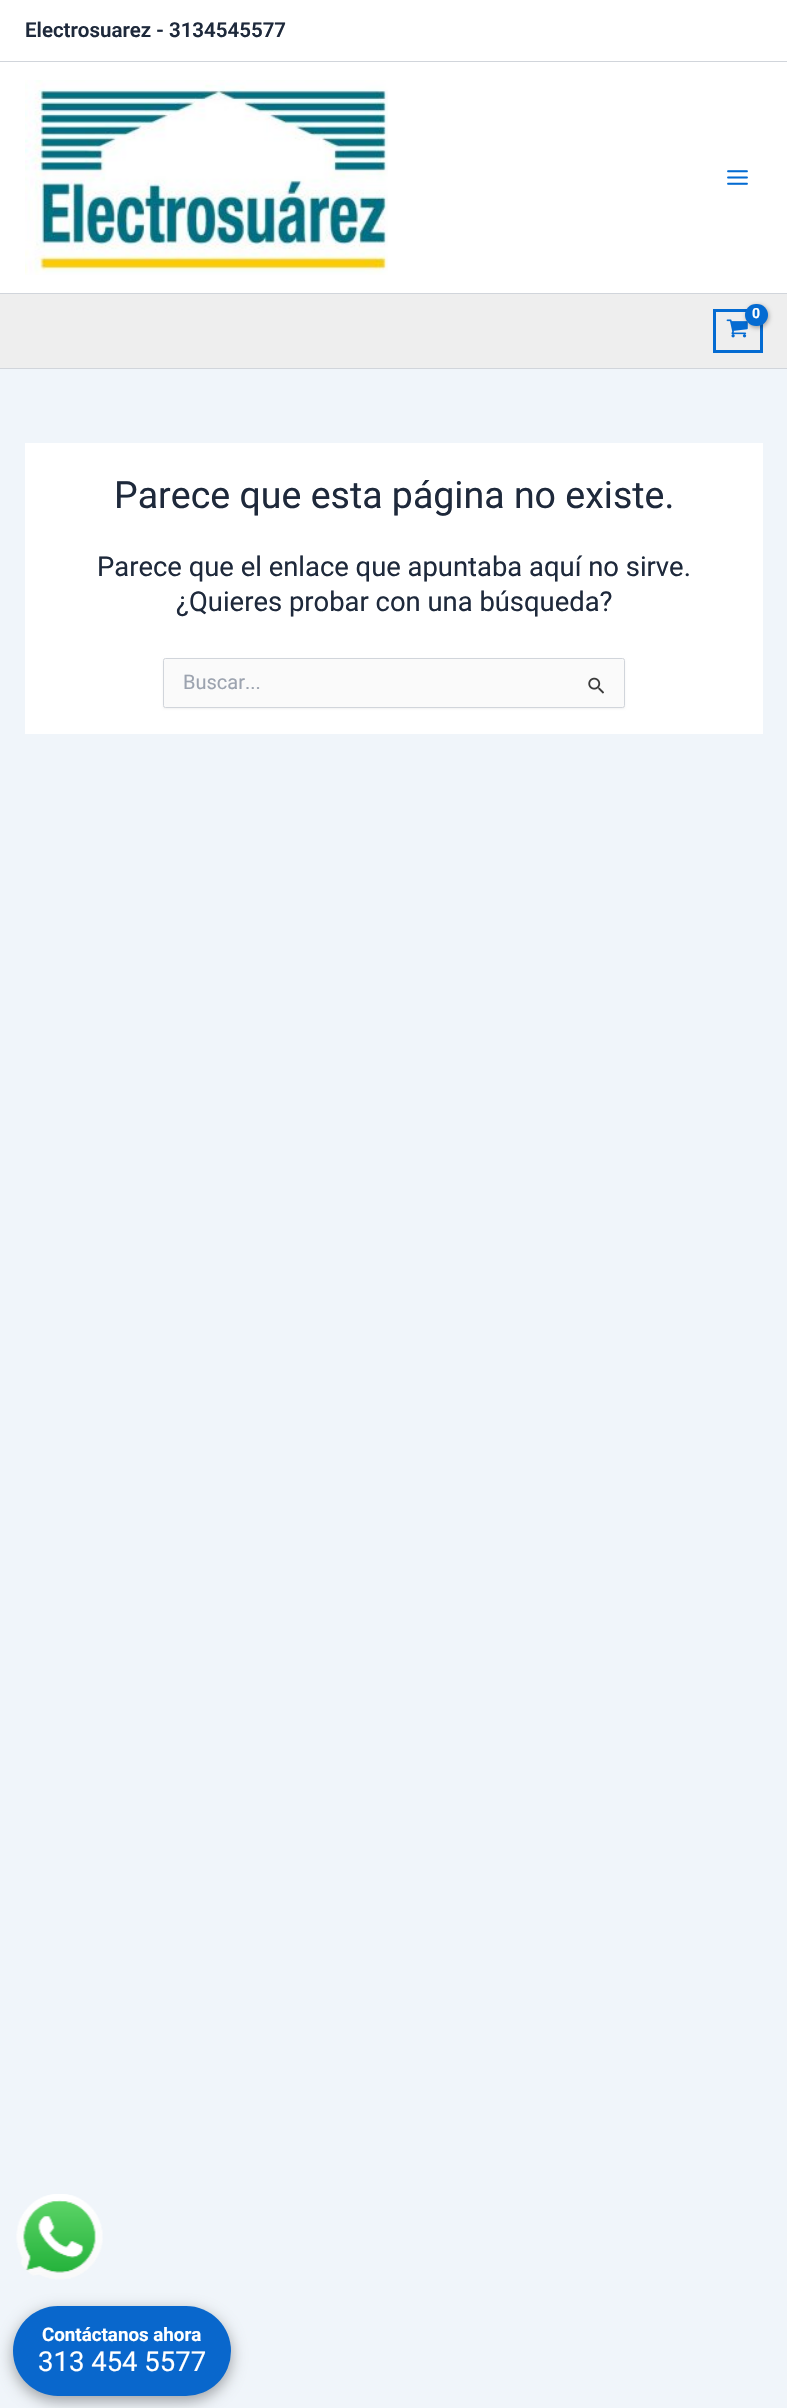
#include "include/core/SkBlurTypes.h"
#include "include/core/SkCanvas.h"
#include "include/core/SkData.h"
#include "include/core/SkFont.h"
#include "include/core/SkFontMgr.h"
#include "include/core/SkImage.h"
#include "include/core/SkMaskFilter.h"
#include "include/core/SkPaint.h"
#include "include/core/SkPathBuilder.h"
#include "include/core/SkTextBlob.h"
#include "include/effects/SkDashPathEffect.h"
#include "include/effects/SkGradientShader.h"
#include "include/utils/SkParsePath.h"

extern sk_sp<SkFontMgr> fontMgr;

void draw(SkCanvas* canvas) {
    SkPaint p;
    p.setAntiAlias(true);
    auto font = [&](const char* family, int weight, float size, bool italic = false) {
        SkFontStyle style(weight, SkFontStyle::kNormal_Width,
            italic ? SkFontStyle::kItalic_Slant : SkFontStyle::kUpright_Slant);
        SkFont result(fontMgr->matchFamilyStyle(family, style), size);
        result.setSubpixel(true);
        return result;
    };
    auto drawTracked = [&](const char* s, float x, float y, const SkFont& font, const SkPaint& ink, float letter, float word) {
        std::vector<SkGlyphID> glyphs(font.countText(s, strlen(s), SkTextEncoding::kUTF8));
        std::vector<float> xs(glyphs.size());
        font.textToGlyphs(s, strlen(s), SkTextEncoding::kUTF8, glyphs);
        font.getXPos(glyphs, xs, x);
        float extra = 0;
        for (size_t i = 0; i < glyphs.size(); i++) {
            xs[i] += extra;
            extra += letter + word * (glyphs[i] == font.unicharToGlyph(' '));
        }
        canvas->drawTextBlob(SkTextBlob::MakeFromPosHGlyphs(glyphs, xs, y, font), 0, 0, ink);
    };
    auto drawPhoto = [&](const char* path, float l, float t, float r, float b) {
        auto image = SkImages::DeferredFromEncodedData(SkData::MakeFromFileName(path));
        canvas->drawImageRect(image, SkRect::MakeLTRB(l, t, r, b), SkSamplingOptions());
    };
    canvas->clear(0xFFF0F5FA);
    p.setColor(0xFFFFFFFF);
    canvas->drawRect(SkRect::MakeLTRB(0, 0, 787, 293), p);
    p.setColor(0xFFD1D5DB);
    canvas->drawRect(SkRect::MakeLTRB(0, 61, 787, 62), p);
    auto font1 = font("Roboto", 600, 20.5f);
    p.setColor(0xFF1E293B);
    canvas->drawString("Electrosuarez - 3134545577", 25, 37, font1, p);
    p.setColor(0xFFD1D5DB);
    canvas->drawRect(SkRect::MakeLTRB(0, 293, 787, 294), p);
    drawPhoto("media/1.png", 25, 80, 388, 275);
    drawPhoto("media/2.png", 727, 170, 748, 185);
    p.setColor(0xFFEEEEEE);
    canvas->drawRect(SkRect::MakeLTRB(0, 294, 787, 368), p);
    p.setColor(0xFFD1D5DB);
    canvas->drawRect(SkRect::MakeLTRB(0, 368, 787, 369), p);
    p.setStyle(SkPaint::kStroke_Style);
    p.setStrokeWidth(3);
    p.setColor(0xFF046BD2);
    canvas->drawRect(SkRect::MakeLTRB(714.5f, 310.5f, 761.5f, 351.5f), p);
    drawPhoto("media/3.png", 726, 319, 748, 338);
    p.setStyle(SkPaint::kFill_Style);
    p.setColor(0x4D000000);
    p.setMaskFilter(SkMaskFilter::MakeBlur(kNormal_SkBlurStyle, 2));
    canvas->drawRoundRect(SkRect::MakeLTRB(746, 305, 769, 328), 11.5f, 11.5f, p);
    p.setMaskFilter(nullptr);
    p.setColor(0xFF046BD2);
    canvas->drawRoundRect(SkRect::MakeLTRB(745, 304, 768, 326), 11, 11, p);
    auto font2 = font("Roboto", 700, 14);
    p.setColor(0xFFFFFFFF);
    drawTracked("0", 752, 318, font2, p, -1, 0);
    canvas->drawRect(SkRect::MakeLTRB(25, 443, 763, 734), p);
    auto font3 = font("Roboto", 400, 37.5f);
    p.setColor(0xFF1E293B);
    canvas->drawString("Parece que esta página no existe.", 114, 508, font3, p);
    auto font4 = font("Roboto", 400, 27.4f);
    canvas->drawString("Parece que el enlace que apuntaba aquí no sirve.", 97, 576, font4, p);
    canvas->drawString("¿Quieres probar con una búsqueda?", 176, 611, font4, p);
    p.setColor(0x0D000000);
    p.setMaskFilter(SkMaskFilter::MakeBlur(kNormal_SkBlurStyle, 1));
    canvas->drawRoundRect(SkRect::MakeLTRB(163, 659, 625, 709), 2.5f, 2.5f, p);
    p.setMaskFilter(nullptr);
    p.setColor(0xFFFAFAFA);
    canvas->drawRoundRect(SkRect::MakeLTRB(163.5f, 658.5f, 624.5f, 707.5f), 2, 2, p);
    p.setStyle(SkPaint::kStroke_Style);
    p.setStrokeWidth(1);
    p.setColor(0xFFD1D5DB);
    canvas->drawRoundRect(SkRect::MakeLTRB(163.5f, 658.5f, 624.5f, 707.5f), 2, 2, p);
    auto font5 = font("Roboto", 400, 20);
    p.setStyle(SkPaint::kFill_Style);
    p.setColor(0xFF9CA3AF);
    canvas->drawString("Buscar...", 183, 689, font5, p);
    drawPhoto("media/4.png", 588, 677, 604, 694);
    drawPhoto("media/5.png", 16, 2194, 103, 2280);
    p.setColor(0x59000000);
    p.setMaskFilter(SkMaskFilter::MakeBlur(kNormal_SkBlurStyle, 7.5f));
    canvas->drawRoundRect(SkRect::MakeLTRB(13, 2311, 231, 2401), 45, 45, p);
    p.setMaskFilter(nullptr);
    p.setColor(0xFF0967CC);
    canvas->drawRoundRect(SkRect::MakeLTRB(13, 2306, 231, 2396), 45, 45, p);
    auto font6 = font("Roboto", 700, 18.75f);
    p.setColor(0xFFFFFFFF);
    canvas->drawString("Contáctanos ahora", 42, 2341, font6, p);
    auto font7 = font("Roboto", 400, 27.5f);
    canvas->drawString("313 454 5577", 38, 2371, font7, p);
}
